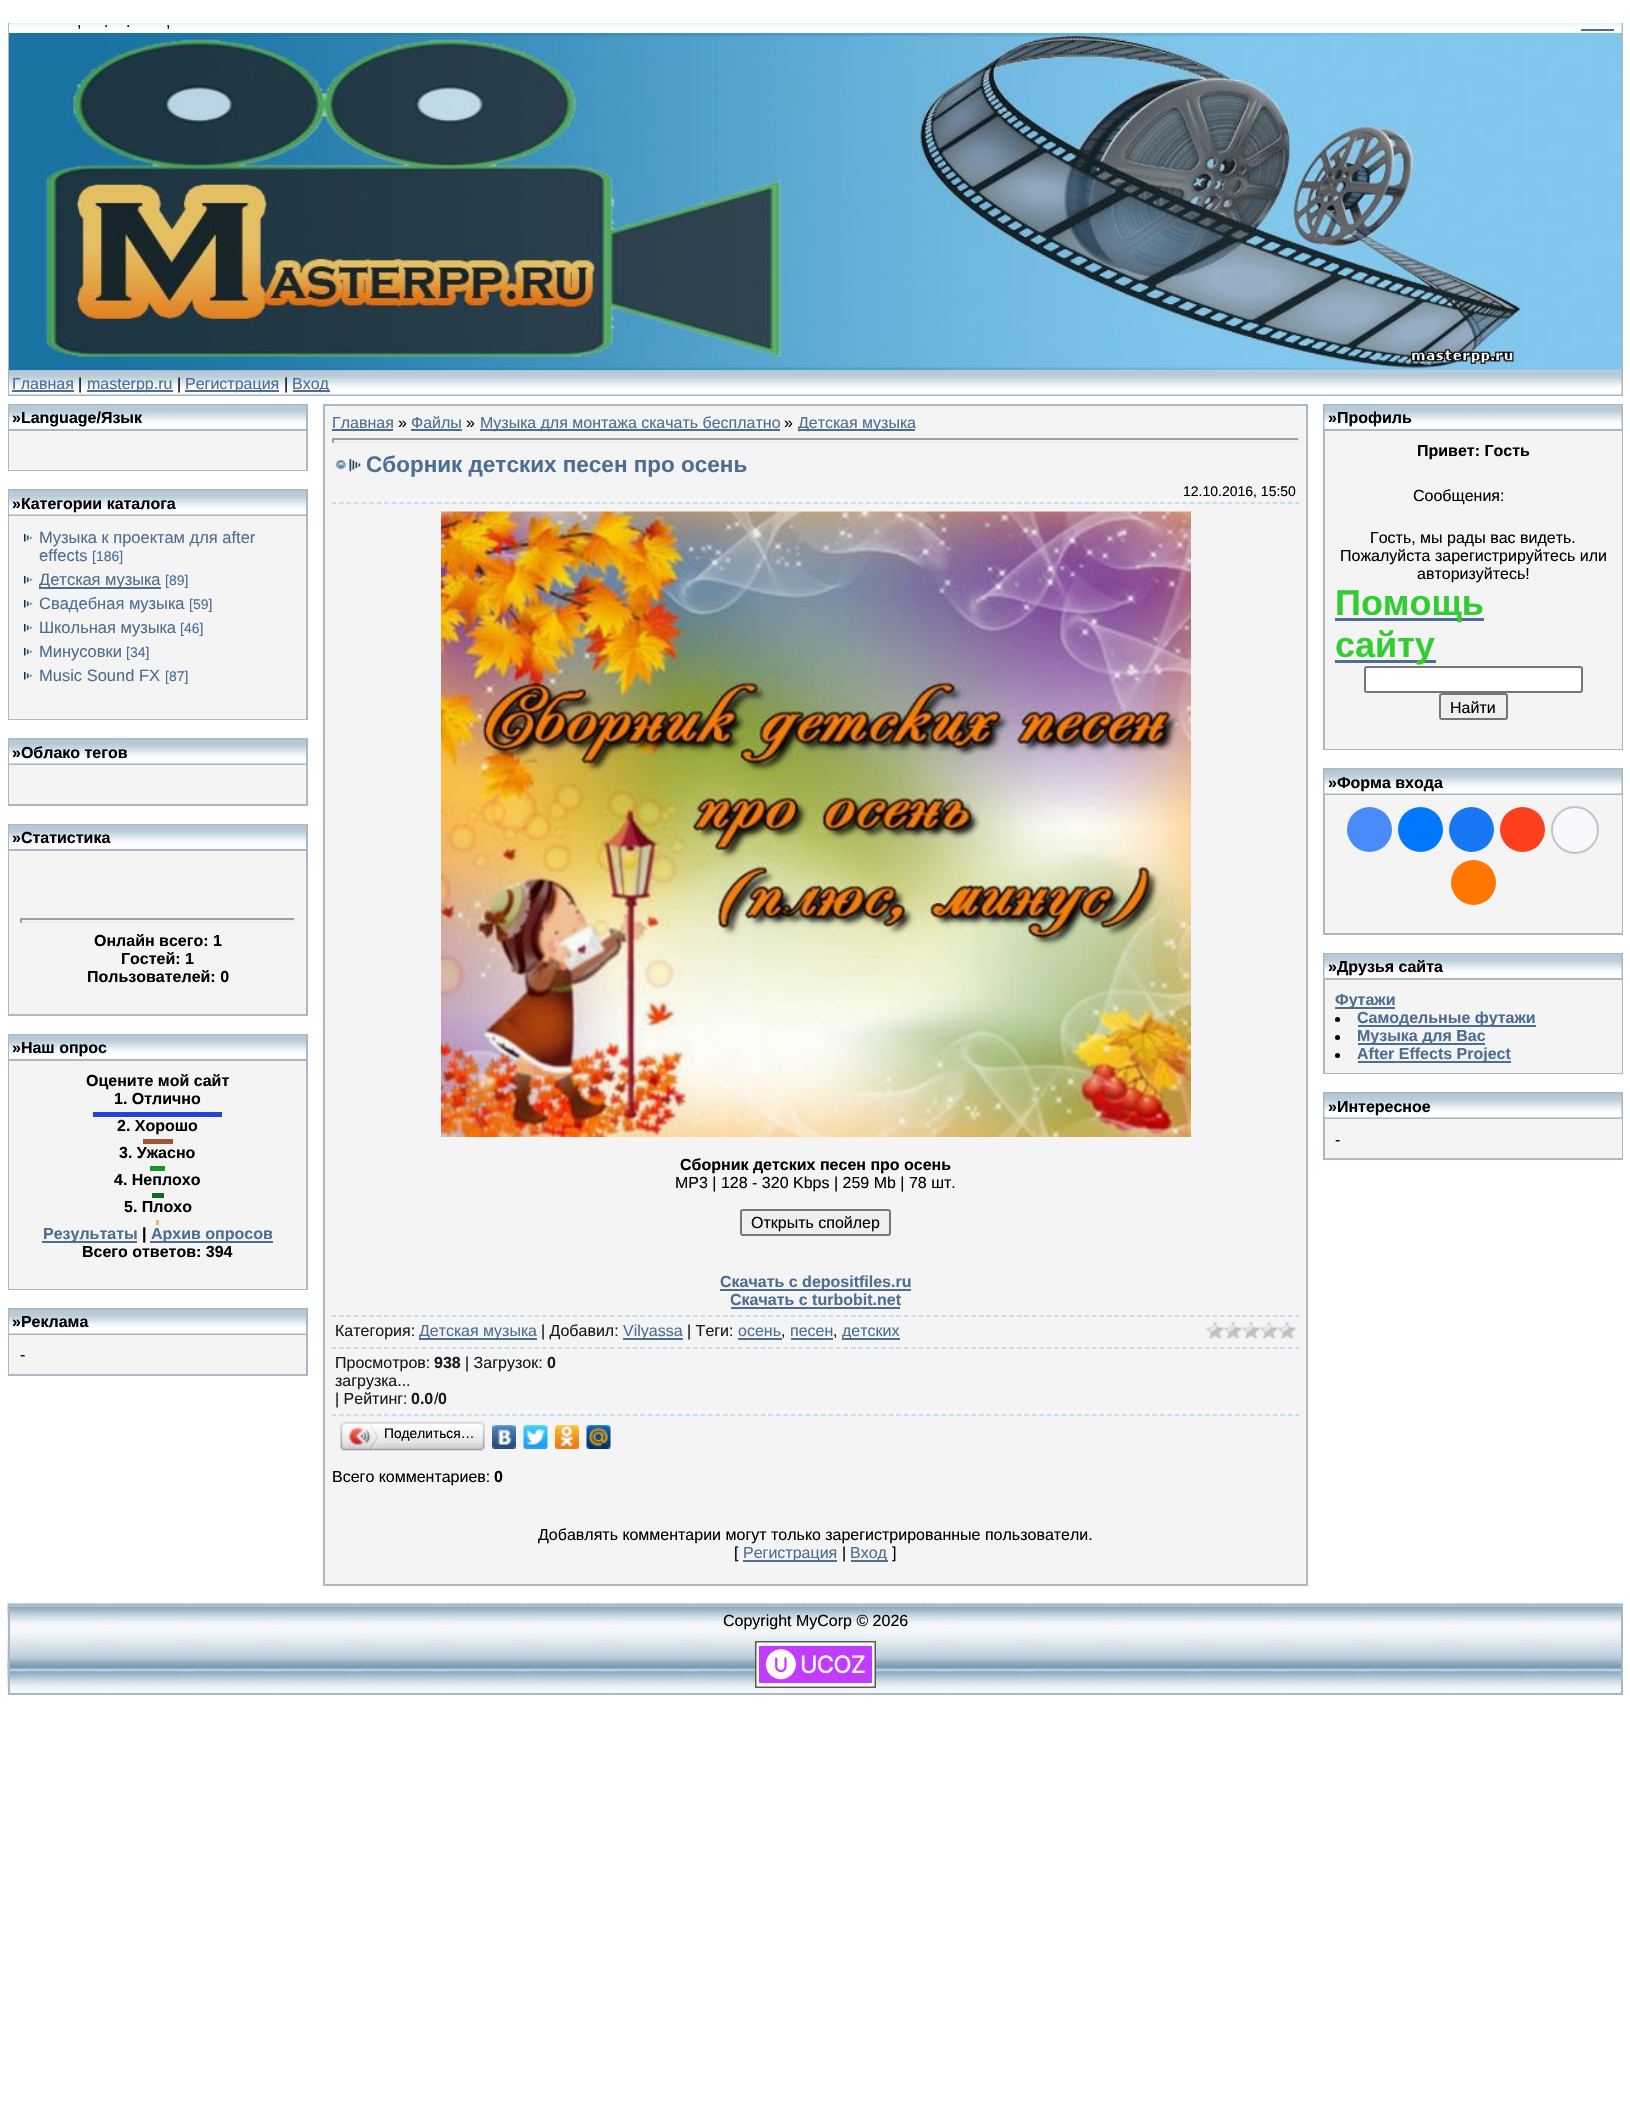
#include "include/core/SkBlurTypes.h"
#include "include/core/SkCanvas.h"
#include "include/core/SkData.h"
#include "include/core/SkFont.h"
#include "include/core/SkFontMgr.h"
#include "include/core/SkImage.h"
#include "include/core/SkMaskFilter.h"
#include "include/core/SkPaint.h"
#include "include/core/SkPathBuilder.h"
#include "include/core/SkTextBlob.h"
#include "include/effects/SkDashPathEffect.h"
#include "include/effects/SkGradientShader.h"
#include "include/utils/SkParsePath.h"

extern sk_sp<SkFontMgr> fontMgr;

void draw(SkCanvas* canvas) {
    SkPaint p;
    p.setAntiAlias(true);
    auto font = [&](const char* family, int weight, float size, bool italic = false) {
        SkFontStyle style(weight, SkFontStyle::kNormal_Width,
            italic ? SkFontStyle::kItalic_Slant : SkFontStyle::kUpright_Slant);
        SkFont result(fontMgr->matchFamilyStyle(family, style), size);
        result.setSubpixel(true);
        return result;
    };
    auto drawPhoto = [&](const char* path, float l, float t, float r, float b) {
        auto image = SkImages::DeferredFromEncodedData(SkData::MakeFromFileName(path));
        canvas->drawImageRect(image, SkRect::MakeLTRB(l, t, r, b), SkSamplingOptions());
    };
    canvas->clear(0xFFFFFFFF);
    p.setStyle(SkPaint::kStroke_Style);
    p.setStrokeWidth(2);
    p.setColor(0xFFA9B8C2);
    canvas->drawRect(SkRect::MakeLTRB(9, 9, 1622, 395), p);
    p.setStyle(SkPaint::kFill_Style);
    p.setColor(0xFFFFFFFF);
    canvas->drawRect(SkRect::MakeLTRB(8, 8, 1623, 23), p);
    drawPhoto("media/1.png", 9, 23, 494, 33);
    auto font1 = font("Liberation Sans", 400, 16);
    p.setColor(0xFF000000);
    {
        const struct { const char* s; float x, y; } items[] = {
            {",", 77, 27},
            {".", 104, 27},
            {".", 126, 27},
            {",", 166, 27},
        };
        for (auto [s, x, y] : items) {
            canvas->drawString(s, x, y, font1, p);
        }
    }
    drawPhoto("media/2.png", 493, 23, 1622, 33);
    p.setColor(0xFF4D6D91);
    canvas->drawRect(SkRect::MakeLTRB(1581, 29, 1614, 31), p);
    drawPhoto("media/3.png", 9, 33, 1622, 371);
    drawPhoto("media/4.png", 31, 36, 1520, 368);
    drawPhoto("media/5.png", 9, 370, 1622, 395);
    canvas->drawString("Главная", 12, 389, font1, p);
    canvas->drawRect(SkRect::MakeLTRB(12, 390, 74, 392), p);
    p.setColor(0xFF000000);
    canvas->drawString("|", 78, 389, font1, p);
    p.setColor(0xFF4D6D91);
    canvas->drawRect(SkRect::MakeLTRB(87, 390, 173, 392), p);
    canvas->drawString("masterpp.ru", 87, 389, font1, p);
    p.setColor(0xFF000000);
    canvas->drawString("|", 177, 389, font1, p);
    p.setColor(0xFF4D6D91);
    canvas->drawRect(SkRect::MakeLTRB(185, 390, 279, 392), p);
    canvas->drawString("Регистрация", 185, 389, font1, p);
    p.setColor(0xFF000000);
    canvas->drawString("|", 284, 389, font1, p);
    p.setColor(0xFF4D6D91);
    canvas->drawRect(SkRect::MakeLTRB(293, 390, 330, 392), p);
    canvas->drawString("Вход", 292, 389, font1, p);
    p.setColor(0xFFA9B8C2);
    canvas->drawRect(SkRect::MakeLTRB(8, 404, 308, 471), p);
    drawPhoto("media/6.png", 9, 405, 306, 429);
    auto font2 = font("Liberation Sans", 700, 16);
    p.setColor(0xFF000000);
    canvas->drawString("»Language/Язык", 12, 423, font2, p);
    p.setColor(0xFFF4F4F4);
    canvas->drawRect(SkRect::MakeLTRB(9, 431, 306, 470), p);
    p.setColor(0xFFA9B8C2);
    canvas->drawRect(SkRect::MakeLTRB(8, 489, 308, 720), p);
    drawPhoto("media/7.png", 9, 490, 306, 515);
    p.setColor(0xFF000000);
    canvas->drawString("»Категории каталога", 12, 509, font2, p);
    p.setColor(0xFFF4F4F4);
    canvas->drawRect(SkRect::MakeLTRB(9, 516, 306, 719), p);
    drawPhoto("media/8.png", 24, 534, 32, 542);
    auto font3 = font("Liberation Sans", 400, 16.5f);
    p.setColor(0xFF4D6D91);
    canvas->drawString("Музыка к проектам для after", 39, 543, font3, p);
    canvas->drawString("effects", 39, 561, font3, p);
    auto font4 = font("Liberation Sans", 400, 14);
    canvas->drawString("[186]", 92, 561, font4, p);
    drawPhoto("media/8.png", 24, 576, 32, 584);
    canvas->drawRect(SkRect::MakeLTRB(39, 587, 161, 589), p);
    canvas->drawString("Детская музыка", 39, 585, font3, p);
    canvas->drawString("[89]", 165, 585, font4, p);
    drawPhoto("media/8.png", 24, 600, 32, 608);
    canvas->drawString("Свадебная музыка", 39, 609, font3, p);
    canvas->drawString("[59]", 189, 609, font4, p);
    drawPhoto("media/8.png", 24, 624, 32, 632);
    canvas->drawString("Школьная музыка", 39, 633, font3, p);
    canvas->drawString("[46]", 180, 633, font4, p);
    drawPhoto("media/8.png", 24, 648, 32, 656);
    canvas->drawString("Минусовки", 39, 657, font3, p);
    canvas->drawString("[34]", 126, 657, font4, p);
    drawPhoto("media/8.png", 24, 672, 32, 680);
    canvas->drawString("Music Sound FX", 39, 681, font3, p);
    canvas->drawString("[87]", 165, 681, font4, p);
    p.setColor(0xFFA9B8C2);
    canvas->drawRect(SkRect::MakeLTRB(8, 738, 308, 806), p);
    drawPhoto("media/9.png", 9, 739, 306, 764);
    p.setColor(0xFF000000);
    canvas->drawString("»Облако тегов", 12, 758, font2, p);
    p.setColor(0xFFF4F4F4);
    canvas->drawRect(SkRect::MakeLTRB(9, 765, 306, 804), p);
    p.setColor(0xFFA9B8C2);
    canvas->drawRect(SkRect::MakeLTRB(8, 824, 308, 1016), p);
    drawPhoto("media/10.png", 9, 825, 306, 849);
    p.setColor(0xFF000000);
    canvas->drawString("»Статистика", 12, 843, font2, p);
    {
        const struct { float l, t, r, b; SkColor color; } items[] = {
            {9, 851, 306, 1014, 0xFFF4F4F4},
            {20, 918, 296, 920, 0xFF9F9F9F},
            {294, 918, 296, 923, 0xFFEEEEEE},
            {20, 921, 296, 923, 0xFFEEEEEE},
            {20, 918, 22, 923, 0xFF9F9F9F},
        };
        for (auto [l, t, r, b, color] : items) {
            p.setColor(color);
            canvas->drawRect(SkRect::MakeLTRB(l, t, r, b), p);
        }
    }
    p.setColor(0xFF000000);
    {
        const struct { const char* s; float x, y; } items[] = {
            {"Онлайн всего: 1", 94, 946},
            {"Гостей: 1", 121, 964},
            {"Пользователей: 0", 87, 982},
        };
        for (auto [s, x, y] : items) {
            canvas->drawString(s, x, y, font2, p);
        }
    }
    p.setColor(0xFFA9B8C2);
    canvas->drawRect(SkRect::MakeLTRB(8, 1034, 308, 1290), p);
    drawPhoto("media/11.png", 9, 1035, 306, 1059);
    p.setColor(0xFF000000);
    canvas->drawString("»Наш опрос", 12, 1053, font2, p);
    p.setColor(0xFFF4F4F4);
    canvas->drawRect(SkRect::MakeLTRB(9, 1061, 306, 1289), p);
    p.setColor(0xFF000000);
    canvas->drawString("Оцените мой сайт", 86, 1086, font2, p);
    canvas->drawString("1. Отлично", 114, 1104, font2, p);
    p.setColor(0xFF2144DA);
    canvas->drawRect(SkRect::MakeLTRB(93, 1112, 222, 1117), p);
    p.setColor(0xFF000000);
    canvas->drawString("2. Хорошо", 117, 1131, font2, p);
    p.setColor(0xFFA1523A);
    canvas->drawRect(SkRect::MakeLTRB(143, 1139, 173, 1144), p);
    p.setColor(0xFF000000);
    canvas->drawString("3. Ужасно", 119, 1158, font2, p);
    p.setColor(0xFF189721);
    canvas->drawRect(SkRect::MakeLTRB(150, 1166, 165, 1171), p);
    p.setColor(0xFF000000);
    canvas->drawString("4. Неплохо", 114, 1185, font2, p);
    p.setColor(0xFF0B6C24);
    canvas->drawRect(SkRect::MakeLTRB(152, 1193, 164, 1198), p);
    p.setColor(0xFF000000);
    canvas->drawString("5. Плохо", 124, 1212, font2, p);
    p.setColor(0xFFE3BF6A);
    canvas->drawRect(SkRect::MakeLTRB(156, 1220, 159, 1225), p);
    p.setColor(0xFF4D6D91);
    canvas->drawRect(SkRect::MakeLTRB(42, 1241, 137, 1243), p);
    canvas->drawString("Результаты", 43, 1239, font2, p);
    p.setColor(0xFF000000);
    canvas->drawString("|", 142, 1239, font2, p);
    p.setColor(0xFF4D6D91);
    canvas->drawRect(SkRect::MakeLTRB(150, 1241, 273, 1243), p);
    canvas->drawString("Архив опросов", 151, 1239, font2, p);
    p.setColor(0xFF000000);
    canvas->drawString("Всего ответов: 394", 82, 1257, font2, p);
    p.setColor(0xFFA9B8C2);
    canvas->drawRect(SkRect::MakeLTRB(8, 1308, 308, 1376), p);
    drawPhoto("media/12.png", 9, 1309, 306, 1334);
    p.setColor(0xFF000000);
    canvas->drawString("»Реклама", 12, 1327, font2, p);
    p.setColor(0xFFF4F4F4);
    canvas->drawRect(SkRect::MakeLTRB(9, 1335, 306, 1374), p);
    p.setColor(0xFF000000);
    canvas->drawString("-", 20, 1360, font1, p);
    p.setColor(0xFFF4F4F4);
    canvas->drawRect(SkRect::MakeLTRB(324, 405, 1307, 1585), p);
    p.setStyle(SkPaint::kStroke_Style);
    p.setColor(0xFFA9B8C2);
    canvas->drawRect(SkRect::MakeLTRB(324, 405, 1307, 1585), p);
    p.setStyle(SkPaint::kFill_Style);
    p.setColor(0xFF4D6D91);
    canvas->drawString("Главная", 332, 428, font1, p);
    canvas->drawRect(SkRect::MakeLTRB(332, 429, 393, 431), p);
    p.setColor(0xFF000000);
    canvas->drawString("»", 398, 428, font1, p);
    p.setColor(0xFF4D6D91);
    canvas->drawString("Файлы", 411, 428, font1, p);
    canvas->drawRect(SkRect::MakeLTRB(411, 429, 462, 431), p);
    p.setColor(0xFF000000);
    canvas->drawString("»", 466, 428, font1, p);
    p.setColor(0xFF4D6D91);
    canvas->drawRect(SkRect::MakeLTRB(480, 429, 780, 431), p);
    canvas->drawString("Музыка для монтажа скачать бесплатно", 480, 428, font1, p);
    p.setColor(0xFF000000);
    canvas->drawString("»", 784, 428, font1, p);
    p.setColor(0xFF4D6D91);
    canvas->drawRect(SkRect::MakeLTRB(798, 429, 915, 431), p);
    canvas->drawString("Детская музыка", 798, 428, font1, p);
    {
        const struct { float l, t, r, b; SkColor color; } items[] = {
            {332, 438, 1299, 440, 0xFF9F9F9F},
            {1298, 438, 1300, 443, 0xFFEEEEEE},
            {332, 441, 1299, 443, 0xFFEEEEEE},
            {332, 438, 334, 443, 0xFF9F9F9F},
        };
        for (auto [l, t, r, b, color] : items) {
            p.setColor(color);
            canvas->drawRect(SkRect::MakeLTRB(l, t, r, b), p);
        }
    }
    drawPhoto("media/13.png", 335, 458, 361, 472);
    auto font5 = font("Liberation Sans", 700, 22.5f);
    p.setColor(0xFF4D6D91);
    canvas->drawString("Сборник детских песен про осень", 366, 472, font5, p);
    p.setColor(0xFF000000);
    canvas->drawString("12.10.2016, 15:50", 1183, 496, font4, p);
    p.setStyle(SkPaint::kStroke_Style);
    p.setStrokeWidth(1.5f);
    p.setColor(0xFFC1D2DE);
    p.setPathEffect(SkDashPathEffect::Make({{4.5f, 3.03f}}, 0));
    canvas->drawPath(SkPathBuilder().moveTo(331.5f, 503).lineTo(1299, 503).detach(), p);
    p.setPathEffect(nullptr);
    drawPhoto("media/14.png", 441, 511, 1191, 1137);
    p.setStyle(SkPaint::kFill_Style);
    p.setColor(0xFF000000);
    canvas->drawString("Сборник детских песен про осень", 680, 1170, font2, p);
    canvas->drawString("MP3 | 128 - 320 Kbps | 259 Mb | 78 шт.", 675, 1188, font1, p);
    p.setColor(0xFFEFEFEF);
    canvas->drawRoundRect(SkRect::MakeLTRB(741, 1210, 890, 1235), 2, 2, p);
    p.setStyle(SkPaint::kStroke_Style);
    p.setStrokeWidth(2);
    p.setColor(0xFF767676);
    canvas->drawRoundRect(SkRect::MakeLTRB(741, 1210, 890, 1235), 2, 2, p);
    p.setStyle(SkPaint::kFill_Style);
    p.setColor(0xFF000000);
    canvas->drawString("Открыть спойлер", 751, 1228, font1, p);
    p.setColor(0xFF4D6D91);
    canvas->drawRect(SkRect::MakeLTRB(720, 1289, 911, 1291), p);
    canvas->drawString("Скачать с depositfiles.ru", 720, 1287, font2, p);
    canvas->drawString("Скачать с turbobit.net", 730, 1305, font2, p);
    canvas->drawRect(SkRect::MakeLTRB(731, 1307, 900, 1309), p);
    p.setStyle(SkPaint::kStroke_Style);
    p.setStrokeWidth(1.5f);
    p.setColor(0xFFC1D2DE);
    p.setPathEffect(SkDashPathEffect::Make({{4.5f, 3.03f}}, 0));
    canvas->drawPath(SkPathBuilder().moveTo(331.5f, 1316).lineTo(1299, 1316).detach(), p);
    p.setPathEffect(nullptr);
    p.setPathEffect(SkDashPathEffect::Make({{4.5f, 3.03f}}, 0));
    canvas->drawPath(SkPathBuilder().moveTo(331.5f, 1348).lineTo(1299, 1348).detach(), p);
    p.setPathEffect(nullptr);
    p.setStyle(SkPaint::kFill_Style);
    p.setColor(0xFF1A1A1A);
    canvas->drawString("Категория:", 335, 1336, font1, p);
    p.setColor(0xFF4D6D91);
    canvas->drawRect(SkRect::MakeLTRB(419, 1338, 537, 1340), p);
    canvas->drawString("Детская музыка", 419, 1336, font1, p);
    p.setColor(0xFF1A1A1A);
    canvas->drawString("| Добавил:", 541, 1336, font1, p);
    p.setColor(0xFF4D6D91);
    canvas->drawRect(SkRect::MakeLTRB(623, 1338, 683, 1340), p);
    canvas->drawString("Vilyassa", 623, 1336, font1, p);
    p.setColor(0xFF1A1A1A);
    canvas->drawString("| Теги:", 687, 1336, font1, p);
    p.setColor(0xFF4D6D91);
    canvas->drawString("осень", 738, 1336, font1, p);
    p.setColor(0xFF1A1A1A);
    canvas->drawString(",", 781, 1336, font1, p);
    p.setColor(0xFF4D6D91);
    canvas->drawRect(SkRect::MakeLTRB(738, 1338, 782, 1340), p);
    canvas->drawString("песен", 790, 1336, font1, p);
    p.setColor(0xFF1A1A1A);
    canvas->drawString(",", 833, 1336, font1, p);
    p.setColor(0xFF4D6D91);
    canvas->drawRect(SkRect::MakeLTRB(791, 1338, 833, 1340), p);
    canvas->drawRect(SkRect::MakeLTRB(842, 1338, 900, 1340), p);
    canvas->drawString("детских", 842, 1336, font1, p);
    drawPhoto("media/15.png", 1206, 1321, 1296, 1340);
    p.setStyle(SkPaint::kStroke_Style);
    p.setColor(0xFFC1D2DE);
    p.setPathEffect(SkDashPathEffect::Make({{4.5f, 3.03f}}, 0));
    canvas->drawPath(SkPathBuilder().moveTo(331.5f, 1415).lineTo(1299, 1415).detach(), p);
    p.setPathEffect(nullptr);
    p.setStyle(SkPaint::kFill_Style);
    p.setColor(0xFF1A1A1A);
    canvas->drawString("Просмотров:", 335, 1368, font1, p);
    canvas->drawString("938", 434, 1368, font2, p);
    canvas->drawString("| Загрузок:", 465, 1368, font1, p);
    canvas->drawString("0", 547, 1368, font2, p);
    canvas->drawString("загрузка...", 335, 1386, font1, p);
    canvas->drawString("| Рейтинг:", 335, 1404, font1, p);
    canvas->drawString("0.0", 411, 1404, font2, p);
    canvas->drawString("/", 434, 1404, font1, p);
    canvas->drawString("0", 438, 1404, font2, p);
    drawPhoto("media/16.png", 345, 1422, 480, 1451);
    drawPhoto("media/17.png", 340, 1422, 345, 1451);
    drawPhoto("media/18.png", 349, 1423, 380, 1449);
    auto font6 = font("Liberation Sans", 400, 13.75f);
    p.setColor(0xFF000000);
    canvas->drawString("Поделиться…", 384, 1438, font6, p);
    drawPhoto("media/19.png", 480, 1422, 485, 1451);
    drawPhoto("media/20.png", 492, 1425, 516, 1449);
    drawPhoto("media/21.png", 523, 1425, 548, 1449);
    drawPhoto("media/22.png", 555, 1425, 579, 1449);
    drawPhoto("media/23.png", 586, 1425, 611, 1449);
    canvas->drawString("Всего комментариев:", 332, 1482, font1, p);
    canvas->drawString("0", 494, 1482, font2, p);
    canvas->drawString("Добавлять комментарии могут только зарегистрированные пользователи.", 538, 1540, font1, p);
    canvas->drawString("[", 734, 1558, font1, p);
    p.setColor(0xFF4D6D91);
    canvas->drawRect(SkRect::MakeLTRB(743, 1560, 837, 1562), p);
    canvas->drawString("Регистрация", 743, 1558, font1, p);
    p.setColor(0xFF000000);
    canvas->drawString("|", 842, 1558, font1, p);
    p.setColor(0xFF4D6D91);
    canvas->drawRect(SkRect::MakeLTRB(851, 1560, 888, 1562), p);
    canvas->drawString("Вход", 850, 1558, font1, p);
    p.setColor(0xFF000000);
    canvas->drawString("]", 892, 1558, font1, p);
    p.setColor(0xFFA9B8C2);
    canvas->drawRect(SkRect::MakeLTRB(1323, 404, 1623, 750), p);
    drawPhoto("media/24.png", 1324, 405, 1622, 429);
    p.setColor(0xFF000000);
    canvas->drawString("»Профиль", 1328, 423, font2, p);
    p.setColor(0xFFF4F4F4);
    canvas->drawRect(SkRect::MakeLTRB(1325, 431, 1622, 749), p);
    p.setColor(0xFF000000);
    canvas->drawString("Привет: Гость", 1417, 456, font2, p);
    {
        const struct { const char* s; float x, y; } items[] = {
            {"Сообщения:", 1413, 501},
            {"Гость, мы рады вас видеть.", 1370, 543},
            {"Пожалуйста зарегистрируйтесь или", 1340, 561},
            {"авторизуйтесь!", 1417, 579},
        };
        for (auto [s, x, y] : items) {
            canvas->drawString(s, x, y, font1, p);
        }
    }
    p.setColor(0xFF4D6D91);
    canvas->drawRect(SkRect::MakeLTRB(1335, 618, 1484, 621), p);
    auto font7 = font("Liberation Sans", 700, 36);
    p.setColor(0xFF32CD32);
    canvas->drawString("Помощь", 1335, 615, font7, p);
    p.setColor(0xFF4D6D91);
    canvas->drawRect(SkRect::MakeLTRB(1335, 660, 1436, 663), p);
    p.setColor(0xFF32CD32);
    canvas->drawString("сайту", 1335, 657, font7, p);
    p.setColor(0xFFFFFFFF);
    canvas->drawRoundRect(SkRect::MakeLTRB(1365, 667, 1582, 692), 2, 2, p);
    p.setStyle(SkPaint::kStroke_Style);
    p.setStrokeWidth(2);
    p.setColor(0xFF767676);
    canvas->drawRoundRect(SkRect::MakeLTRB(1365, 667, 1582, 692), 2, 2, p);
    p.setStyle(SkPaint::kFill_Style);
    p.setColor(0xFFEFEFEF);
    canvas->drawRoundRect(SkRect::MakeLTRB(1440, 694, 1507, 719), 2, 2, p);
    p.setStyle(SkPaint::kStroke_Style);
    p.setColor(0xFF767676);
    canvas->drawRoundRect(SkRect::MakeLTRB(1440, 694, 1507, 719), 2, 2, p);
    p.setStyle(SkPaint::kFill_Style);
    p.setColor(0xFF000000);
    canvas->drawString("Найти", 1450, 713, font1, p);
    p.setColor(0xFFA9B8C2);
    canvas->drawRect(SkRect::MakeLTRB(1323, 768, 1623, 935), p);
    drawPhoto("media/25.png", 1324, 769, 1622, 794);
    p.setColor(0xFF000000);
    canvas->drawString("»Форма входа", 1328, 788, font2, p);
    p.setColor(0xFFF4F4F4);
    canvas->drawRect(SkRect::MakeLTRB(1325, 795, 1622, 933), p);
    p.setColor(0xFF498BFA);
    canvas->drawCircle(1369.5f, 829.5f, 22.5f, p);
    p.setColor(0xFF0077FF);
    canvas->drawCircle(1420.5f, 829.5f, 22.5f, p);
    p.setColor(0xFF1877F2);
    canvas->drawCircle(1471.5f, 829.5f, 22.5f, p);
    p.setColor(0xFFFC3F1D);
    canvas->drawCircle(1522.5f, 829.5f, 22.5f, p);
    p.setColor(0xFFF8F8FC);
    canvas->drawCircle(1575, 830, 23, p);
    p.setStyle(SkPaint::kStroke_Style);
    p.setColor(0xFFC4C4C4);
    canvas->drawCircle(1575, 830, 23, p);
    p.setStyle(SkPaint::kFill_Style);
    p.setColor(0xFFFF7700);
    canvas->drawCircle(1473.5f, 882.5f, 22.5f, p);
    p.setColor(0xFFA9B8C2);
    canvas->drawRect(SkRect::MakeLTRB(1323, 953, 1623, 1074), p);
    drawPhoto("media/26.png", 1324, 954, 1622, 978);
    p.setColor(0xFF000000);
    canvas->drawString("»Друзья сайта", 1328, 972, font2, p);
    p.setColor(0xFFF4F4F4);
    canvas->drawRect(SkRect::MakeLTRB(1325, 980, 1622, 1073), p);
    p.setColor(0xFF4D6D91);
    canvas->drawRect(SkRect::MakeLTRB(1335, 1007, 1395, 1009), p);
    canvas->drawString("Футажи", 1335, 1005, font2, p);
    p.setColor(0xFF000000);
    canvas->drawCircle(1337.5f, 1019.5f, 2.5f, p);
    p.setColor(0xFF4D6D91);
    canvas->drawRect(SkRect::MakeLTRB(1358, 1025, 1536, 1027), p);
    canvas->drawString("Самодельные футажи", 1357, 1023, font2, p);
    p.setColor(0xFF000000);
    canvas->drawCircle(1337.5f, 1037.5f, 2.5f, p);
    p.setColor(0xFF4D6D91);
    canvas->drawRect(SkRect::MakeLTRB(1358, 1043, 1485, 1045), p);
    canvas->drawString("Музыка для Вас", 1357, 1041, font2, p);
    p.setColor(0xFF000000);
    canvas->drawCircle(1337.5f, 1055.5f, 2.5f, p);
    p.setColor(0xFF4D6D91);
    canvas->drawRect(SkRect::MakeLTRB(1358, 1061, 1511, 1063), p);
    canvas->drawString("After Effects Project", 1357, 1059, font2, p);
    p.setColor(0xFFA9B8C2);
    canvas->drawRect(SkRect::MakeLTRB(1323, 1092, 1623, 1160), p);
    drawPhoto("media/27.png", 1324, 1093, 1622, 1118);
    p.setColor(0xFF000000);
    canvas->drawString("»Интересное", 1328, 1112, font2, p);
    p.setColor(0xFFF4F4F4);
    canvas->drawRect(SkRect::MakeLTRB(1325, 1119, 1622, 1158), p);
    p.setColor(0xFF000000);
    canvas->drawString("-", 1335, 1145, font1, p);
    drawPhoto("media/28.png", 7, 1603, 1623, 1695);
    p.setStyle(SkPaint::kStroke_Style);
    p.setColor(0xFFA9B8C2);
    canvas->drawRect(SkRect::MakeLTRB(9, 1605, 1622, 1694), p);
    p.setStyle(SkPaint::kFill_Style);
    p.setColor(0xFF000000);
    canvas->drawString("Copyright MyCorp © 2026", 723, 1626, font1, p);
    drawPhoto("media/29.png", 755, 1641, 876, 1688);
}
